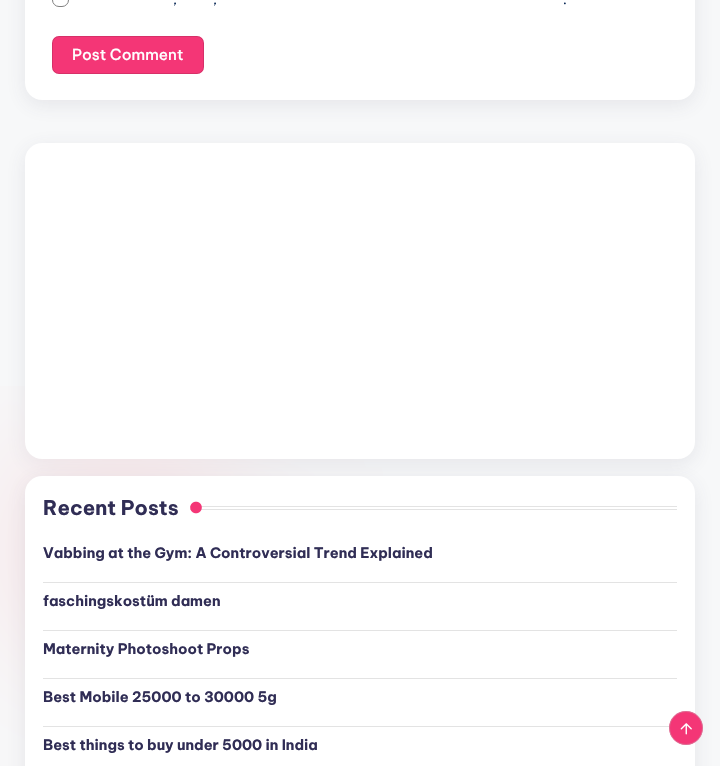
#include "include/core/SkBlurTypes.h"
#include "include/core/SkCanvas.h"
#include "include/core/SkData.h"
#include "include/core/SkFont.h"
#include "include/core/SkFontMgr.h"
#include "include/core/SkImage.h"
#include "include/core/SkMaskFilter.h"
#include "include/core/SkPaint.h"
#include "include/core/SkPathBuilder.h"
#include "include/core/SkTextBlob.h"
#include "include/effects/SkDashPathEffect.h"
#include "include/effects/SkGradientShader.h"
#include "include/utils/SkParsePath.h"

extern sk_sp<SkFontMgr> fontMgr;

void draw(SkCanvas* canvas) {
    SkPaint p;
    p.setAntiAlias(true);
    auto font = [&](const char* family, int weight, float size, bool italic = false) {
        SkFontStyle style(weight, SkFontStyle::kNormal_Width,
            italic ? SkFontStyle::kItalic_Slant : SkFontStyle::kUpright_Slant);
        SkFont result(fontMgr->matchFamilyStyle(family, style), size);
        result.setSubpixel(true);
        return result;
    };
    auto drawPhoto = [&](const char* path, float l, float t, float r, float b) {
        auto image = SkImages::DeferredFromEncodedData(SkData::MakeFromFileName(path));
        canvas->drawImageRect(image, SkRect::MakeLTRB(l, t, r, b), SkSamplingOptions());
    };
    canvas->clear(0xFFF7F8F9);
    p.setColor(0x1A454360);
    p.setMaskFilter(SkMaskFilter::MakeBlur(kNormal_SkBlurStyle, 10));
    canvas->drawRoundRect(SkRect::MakeLTRB(25, -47, 695, 105), 17, 17, p);
    p.setMaskFilter(nullptr);
    p.setColor(0xFFFFFFFF);
    canvas->drawRoundRect(SkRect::MakeLTRB(25, -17, 695, 100), 17, 17, p);
    p.setStyle(SkPaint::kStroke_Style);
    p.setStrokeWidth(1);
    p.setColor(0xFF808080);
    canvas->drawRoundRect(SkRect::MakeLTRB(52.5f, -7.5f, 68.5f, 6.5f), 6.5f, 6.5f, p);
    auto font1 = font("Be Vietnam Pro", 400, 13);
    p.setStyle(SkPaint::kFill_Style);
    p.setColor(0xFF002050);
    {
        const struct { const char* s; float x, y; } items[] = {
            {",", 173, 4},
            {",", 213, 4},
            {".", 563, 4},
        };
        for (auto [s, x, y] : items) {
            canvas->drawString(s, x, y, font1, p);
        }
    }
    p.setColor(0xFFF43676);
    canvas->drawRoundRect(SkRect::MakeLTRB(52, 36, 204, 74), 7, 7, p);
    p.setStyle(SkPaint::kStroke_Style);
    p.setColor(0x1F000000);
    canvas->drawRoundRect(SkRect::MakeLTRB(52.5f, 36.5f, 203.5f, 73.5f), 6.5f, 6.5f, p);
    auto font2 = font("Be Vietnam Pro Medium", 500, 15.25f);
    p.setStyle(SkPaint::kFill_Style);
    p.setColor(0xFFFFFFFF);
    canvas->drawString("Post Comment", 72, 60, font2, p);
    p.setColor(0x1A454360);
    p.setMaskFilter(SkMaskFilter::MakeBlur(kNormal_SkBlurStyle, 10));
    canvas->drawRoundRect(SkRect::MakeLTRB(25, 148, 695, 464), 17, 17, p);
    p.setMaskFilter(nullptr);
    canvas->save();
    canvas->clipRect(SkRect::MakeLTRB(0, 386, 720, 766));
    p.setColor(0xFFF7E3E6);
    p.setMaskFilter(SkMaskFilter::MakeBlur(kNormal_SkBlurStyle, 64));
    canvas->drawRoundRect(SkRect::MakeLTRB(0, 429, 244, 673), 122, 122, p);
    p.setMaskFilter(nullptr);
    canvas->restore();
    p.setColor(0xFFFFFFFF);
    canvas->drawRoundRect(SkRect::MakeLTRB(25, 143, 695, 459), 17, 17, p);
    p.setColor(0x1A454360);
    p.setMaskFilter(SkMaskFilter::MakeBlur(kNormal_SkBlurStyle, 10));
    canvas->drawRoundRect(SkRect::MakeLTRB(25, 481, 695, 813), 17, 17, p);
    p.setMaskFilter(nullptr);
    p.setColor(0xFFFFFFFF);
    canvas->drawRoundRect(SkRect::MakeLTRB(25, 476, 695, 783), 17, 17, p);
    auto font3 = font("Be Vietnam Pro", 700, 20.25f);
    p.setColor(0xFF302D55);
    canvas->drawString("Recent Posts", 43, 515, font3, p);
    p.setColor(0xFFE3E3E3);
    canvas->drawRect(SkRect::MakeLTRB(190, 506, 677, 507), p);
    canvas->drawRect(SkRect::MakeLTRB(190, 509, 677, 510), p);
    drawPhoto("media/1.png", 190, 501, 202, 514);
    auto font4 = font("Be Vietnam Pro", 700, 14.4f);
    p.setColor(0xFF302D55);
    canvas->drawString("Vabbing at the Gym: A Controversial Trend Explained", 43, 558, font4, p);
    p.setColor(0xFFE3E3E3);
    canvas->drawRect(SkRect::MakeLTRB(43, 582, 677, 583), p);
    p.setColor(0xFF302D55);
    canvas->drawString("faschingskostüm damen", 43, 606, font4, p);
    p.setColor(0xFFE3E3E3);
    canvas->drawRect(SkRect::MakeLTRB(43, 630, 677, 631), p);
    p.setColor(0xFF302D55);
    canvas->drawString("Maternity Photoshoot Props", 43, 654, font4, p);
    p.setColor(0xFFE3E3E3);
    canvas->drawRect(SkRect::MakeLTRB(43, 678, 677, 679), p);
    p.setColor(0xFF302D55);
    canvas->drawString("Best Mobile 25000 to 30000 5g", 43, 702, font4, p);
    p.setColor(0xFFE3E3E3);
    canvas->drawRect(SkRect::MakeLTRB(43, 726, 677, 727), p);
    p.setColor(0xFF302D55);
    canvas->drawString("Best things to buy under 5000 in India", 43, 750, font4, p);
    p.setColor(0xFFF43676);
    canvas->drawCircle(686, 728, 17, p);
    p.setStyle(SkPaint::kStroke_Style);
    p.setColor(0x66B9B9B9);
    canvas->drawCircle(686, 728, 16.5f, p);
    drawPhoto("media/2.png", 680, 723, 692, 735);
}
